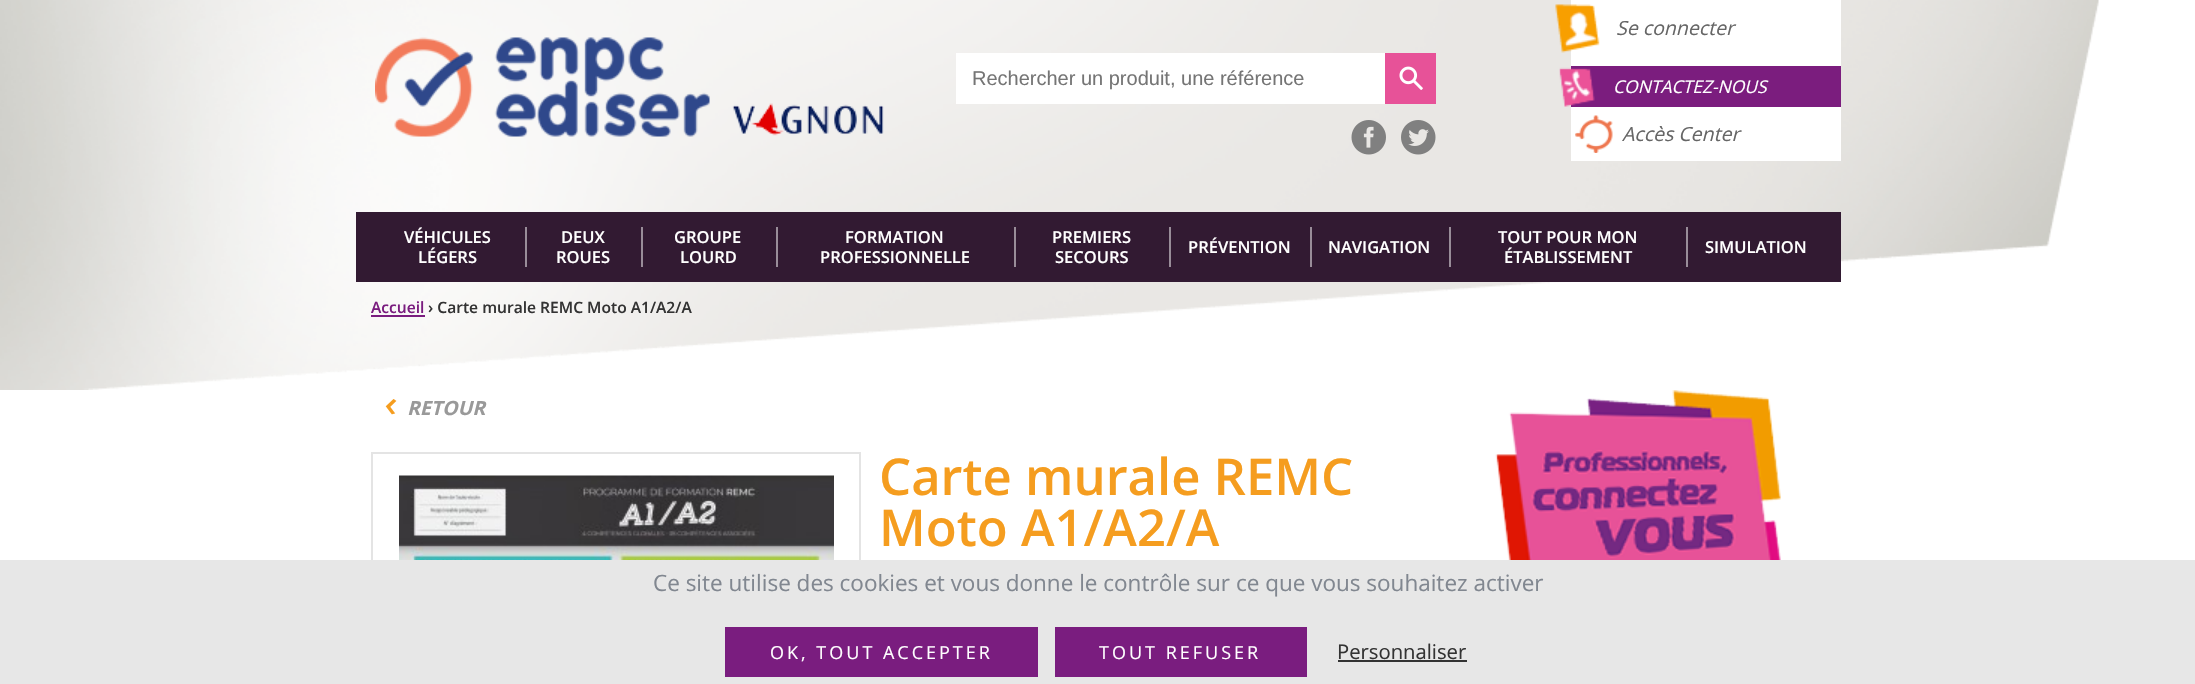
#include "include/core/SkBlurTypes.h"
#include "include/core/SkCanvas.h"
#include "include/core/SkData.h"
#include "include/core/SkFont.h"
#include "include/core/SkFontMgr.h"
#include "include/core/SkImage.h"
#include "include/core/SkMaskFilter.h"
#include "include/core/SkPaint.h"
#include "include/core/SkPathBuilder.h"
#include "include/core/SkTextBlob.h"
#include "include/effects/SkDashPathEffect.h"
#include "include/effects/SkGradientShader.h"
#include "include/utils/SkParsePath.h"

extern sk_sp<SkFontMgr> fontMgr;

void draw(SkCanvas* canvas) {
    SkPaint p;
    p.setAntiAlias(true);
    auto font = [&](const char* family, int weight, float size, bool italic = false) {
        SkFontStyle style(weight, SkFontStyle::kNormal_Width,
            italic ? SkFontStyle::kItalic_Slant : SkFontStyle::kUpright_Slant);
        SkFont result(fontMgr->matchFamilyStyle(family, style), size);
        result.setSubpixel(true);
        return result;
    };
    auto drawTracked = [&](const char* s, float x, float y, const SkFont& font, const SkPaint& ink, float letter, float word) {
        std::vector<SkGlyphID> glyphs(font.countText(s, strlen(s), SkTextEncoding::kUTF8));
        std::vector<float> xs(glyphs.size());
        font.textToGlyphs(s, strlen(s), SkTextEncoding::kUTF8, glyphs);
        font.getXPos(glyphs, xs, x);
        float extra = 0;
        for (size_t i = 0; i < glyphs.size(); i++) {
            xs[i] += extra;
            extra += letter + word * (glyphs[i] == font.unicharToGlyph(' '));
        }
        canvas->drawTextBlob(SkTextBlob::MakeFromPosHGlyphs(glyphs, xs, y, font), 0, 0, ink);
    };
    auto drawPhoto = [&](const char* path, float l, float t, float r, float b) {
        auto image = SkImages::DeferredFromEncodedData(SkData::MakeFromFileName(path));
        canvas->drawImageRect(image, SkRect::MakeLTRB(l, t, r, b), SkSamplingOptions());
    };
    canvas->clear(0xFFFFFFFF);
    drawPhoto("media/1.png", 0, 0, 2099, 390);
    drawPhoto("media/2.png", 375, 37, 710, 137);
    drawPhoto("media/3.png", 732, 103, 884, 136);
    p.setColor(0xFFFFFFFF);
    canvas->drawRect(SkRect::MakeLTRB(956, 53, 1385, 104), p);
    auto font1 = font("Liberation Sans", 400, 20);
    p.setColor(0xFF757575);
    canvas->drawString("Rechercher un produit, une référence", 972, 85, font1, p);
    p.setColor(0xFFE75298);
    canvas->drawRect(SkRect::MakeLTRB(1385, 53, 1436, 104), p);
    drawPhoto("media/4.png", 1399, 66, 1423, 90);
    p.setColor(0xFFFFFFFF);
    canvas->drawRect(SkRect::MakeLTRB(1571, 0, 1841, 161), p);
    drawPhoto("media/5.png", 1555, 4, 1600, 53);
    auto font2 = font("Open Sans", 400, 19.5f, true);
    p.setColor(0xFF666666);
    canvas->drawString("Se connecter", 1616, 35, font2, p);
    p.setColor(0xFF7B1D7E);
    canvas->drawRect(SkRect::MakeLTRB(1571, 66, 1841, 107), p);
    drawPhoto("media/6.png", 1559, 67, 1595, 107);
    auto font3 = font("Open Sans", 400, 17.5f, true);
    p.setColor(0xFFFFFFFF);
    canvas->drawString("CONTACTEZ-NOUS", 1613, 93, font3, p);
    drawPhoto("media/7.png", 1575, 115, 1613, 153);
    p.setColor(0xFF666666);
    canvas->drawString("Accès Center", 1622, 141, font2, p);
    drawPhoto("media/8.png", 1351, 120, 1386, 155);
    drawPhoto("media/9.png", 1401, 120, 1436, 155);
    p.setColor(0xFF321A32);
    canvas->drawRect(SkRect::MakeLTRB(356, 212, 1841, 282), p);
    p.setColor(0xFF998D99);
    canvas->drawRect(SkRect::MakeLTRB(525, 227, 527, 267), p);
    auto font4 = font("Open Sans", 600, 16.5f);
    p.setColor(0xFFFFFFFF);
    canvas->drawString("VÉHICULES", 404, 243, font4, p);
    canvas->drawString("LÉGERS", 418, 263, font4, p);
    p.setColor(0xFF998D99);
    canvas->drawRect(SkRect::MakeLTRB(641, 227, 643, 267), p);
    p.setColor(0xFFFFFFFF);
    canvas->drawString("DEUX", 561, 243, font4, p);
    canvas->drawString("ROUES", 556, 263, font4, p);
    p.setColor(0xFF998D99);
    canvas->drawRect(SkRect::MakeLTRB(776, 227, 778, 267), p);
    p.setColor(0xFFFFFFFF);
    canvas->drawString("GROUPE", 674, 243, font4, p);
    canvas->drawString("LOURD", 680, 263, font4, p);
    p.setColor(0xFF998D99);
    canvas->drawRect(SkRect::MakeLTRB(1014, 227, 1016, 267), p);
    p.setColor(0xFFFFFFFF);
    canvas->drawString("FORMATION", 845, 243, font4, p);
    canvas->drawString("PROFESSIONNELLE", 820, 263, font4, p);
    p.setColor(0xFF998D99);
    canvas->drawRect(SkRect::MakeLTRB(1169, 227, 1171, 267), p);
    p.setColor(0xFFFFFFFF);
    canvas->drawString("PREMIERS", 1052, 243, font4, p);
    canvas->drawString("SECOURS", 1055, 263, font4, p);
    p.setColor(0xFF998D99);
    canvas->drawRect(SkRect::MakeLTRB(1310, 227, 1312, 267), p);
    p.setColor(0xFFFFFFFF);
    canvas->drawString("PRÉVENTION", 1188, 253, font4, p);
    p.setColor(0xFF998D99);
    canvas->drawRect(SkRect::MakeLTRB(1449, 227, 1451, 267), p);
    p.setColor(0xFFFFFFFF);
    canvas->drawString("NAVIGATION", 1328, 253, font4, p);
    p.setColor(0xFF998D99);
    canvas->drawRect(SkRect::MakeLTRB(1686, 227, 1688, 267), p);
    p.setColor(0xFFFFFFFF);
    {
        const struct { const char* s; float x, y; } items[] = {
            {"TOUT POUR MON", 1498, 243},
            {"ÉTABLISSEMENT", 1504, 263},
            {"SIMULATION", 1705, 253},
        };
        for (auto [s, x, y] : items) {
            canvas->drawString(s, x, y, font4, p);
        }
    }
    auto font5 = font("Open Sans", 600, 15.6f);
    p.setColor(0xFF7A1D7F);
    canvas->drawString("Accueil", 371, 313, font5, p);
    canvas->drawRect(SkRect::MakeLTRB(371, 315, 425, 317), p);
    p.setColor(0xFF333333);
    canvas->drawString("› Carte murale REMC Moto A1/A2/A", 428, 313, font5, p);
    drawPhoto("media/10.png", 385, 399, 397, 415);
    auto font6 = font("Open Sans", 700, 19.5f, true);
    p.setColor(0xFF999999);
    canvas->drawString("RETOUR", 407, 415, font6, p);
    p.setStyle(SkPaint::kStroke_Style);
    p.setStrokeWidth(2);
    p.setColor(0xFFE4E4E4);
    canvas->drawRect(SkRect::MakeLTRB(372, 453, 860, 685), p);
    drawPhoto("media/11.png", 399, 475, 834, 560);
    auto font7 = font("Open Sans", 600, 50.75f);
    p.setStyle(SkPaint::kFill_Style);
    p.setColor(0xFFF59D1F);
    canvas->drawString("Carte murale REMC", 879, 495, font7, p);
    canvas->drawString("Moto A1/A2/A", 879, 546, font7, p);
    drawPhoto("media/12.png", 1495, 390, 1781, 560);
    p.setColor(0xFFE7E7E7);
    canvas->drawRect(SkRect::MakeLTRB(0, 560, 2195, 684), p);
    auto font8 = font("Open Sans", 400, 22.5f);
    p.setColor(0xFF818790);
    canvas->drawString("Ce site utilise des cookies et vous donne le contrôle sur ce que vous souhaitez activer", 653, 591, font8, p);
    p.setColor(0xFF7A1D7F);
    canvas->drawRect(SkRect::MakeLTRB(725, 627, 1038, 677), p);
    auto font9 = font("Open Sans", 400, 18);
    p.setColor(0xFFFFFFFF);
    drawTracked("OK, TOUT ACCEPTER", 770, 659, font9, p, 3, 0);
    p.setColor(0xFF7A1D7F);
    canvas->drawRect(SkRect::MakeLTRB(1055, 627, 1307, 677), p);
    p.setColor(0xFFFFFFFF);
    drawTracked("TOUT REFUSER", 1099, 659, font9, p, 3, 0);
    auto font10 = font("Open Sans", 400, 20.25f);
    p.setColor(0xFF333333);
    canvas->drawString("Personnaliser", 1337, 659, font10, p);
    canvas->drawRect(SkRect::MakeLTRB(1338, 660, 1467, 662), p);
}
